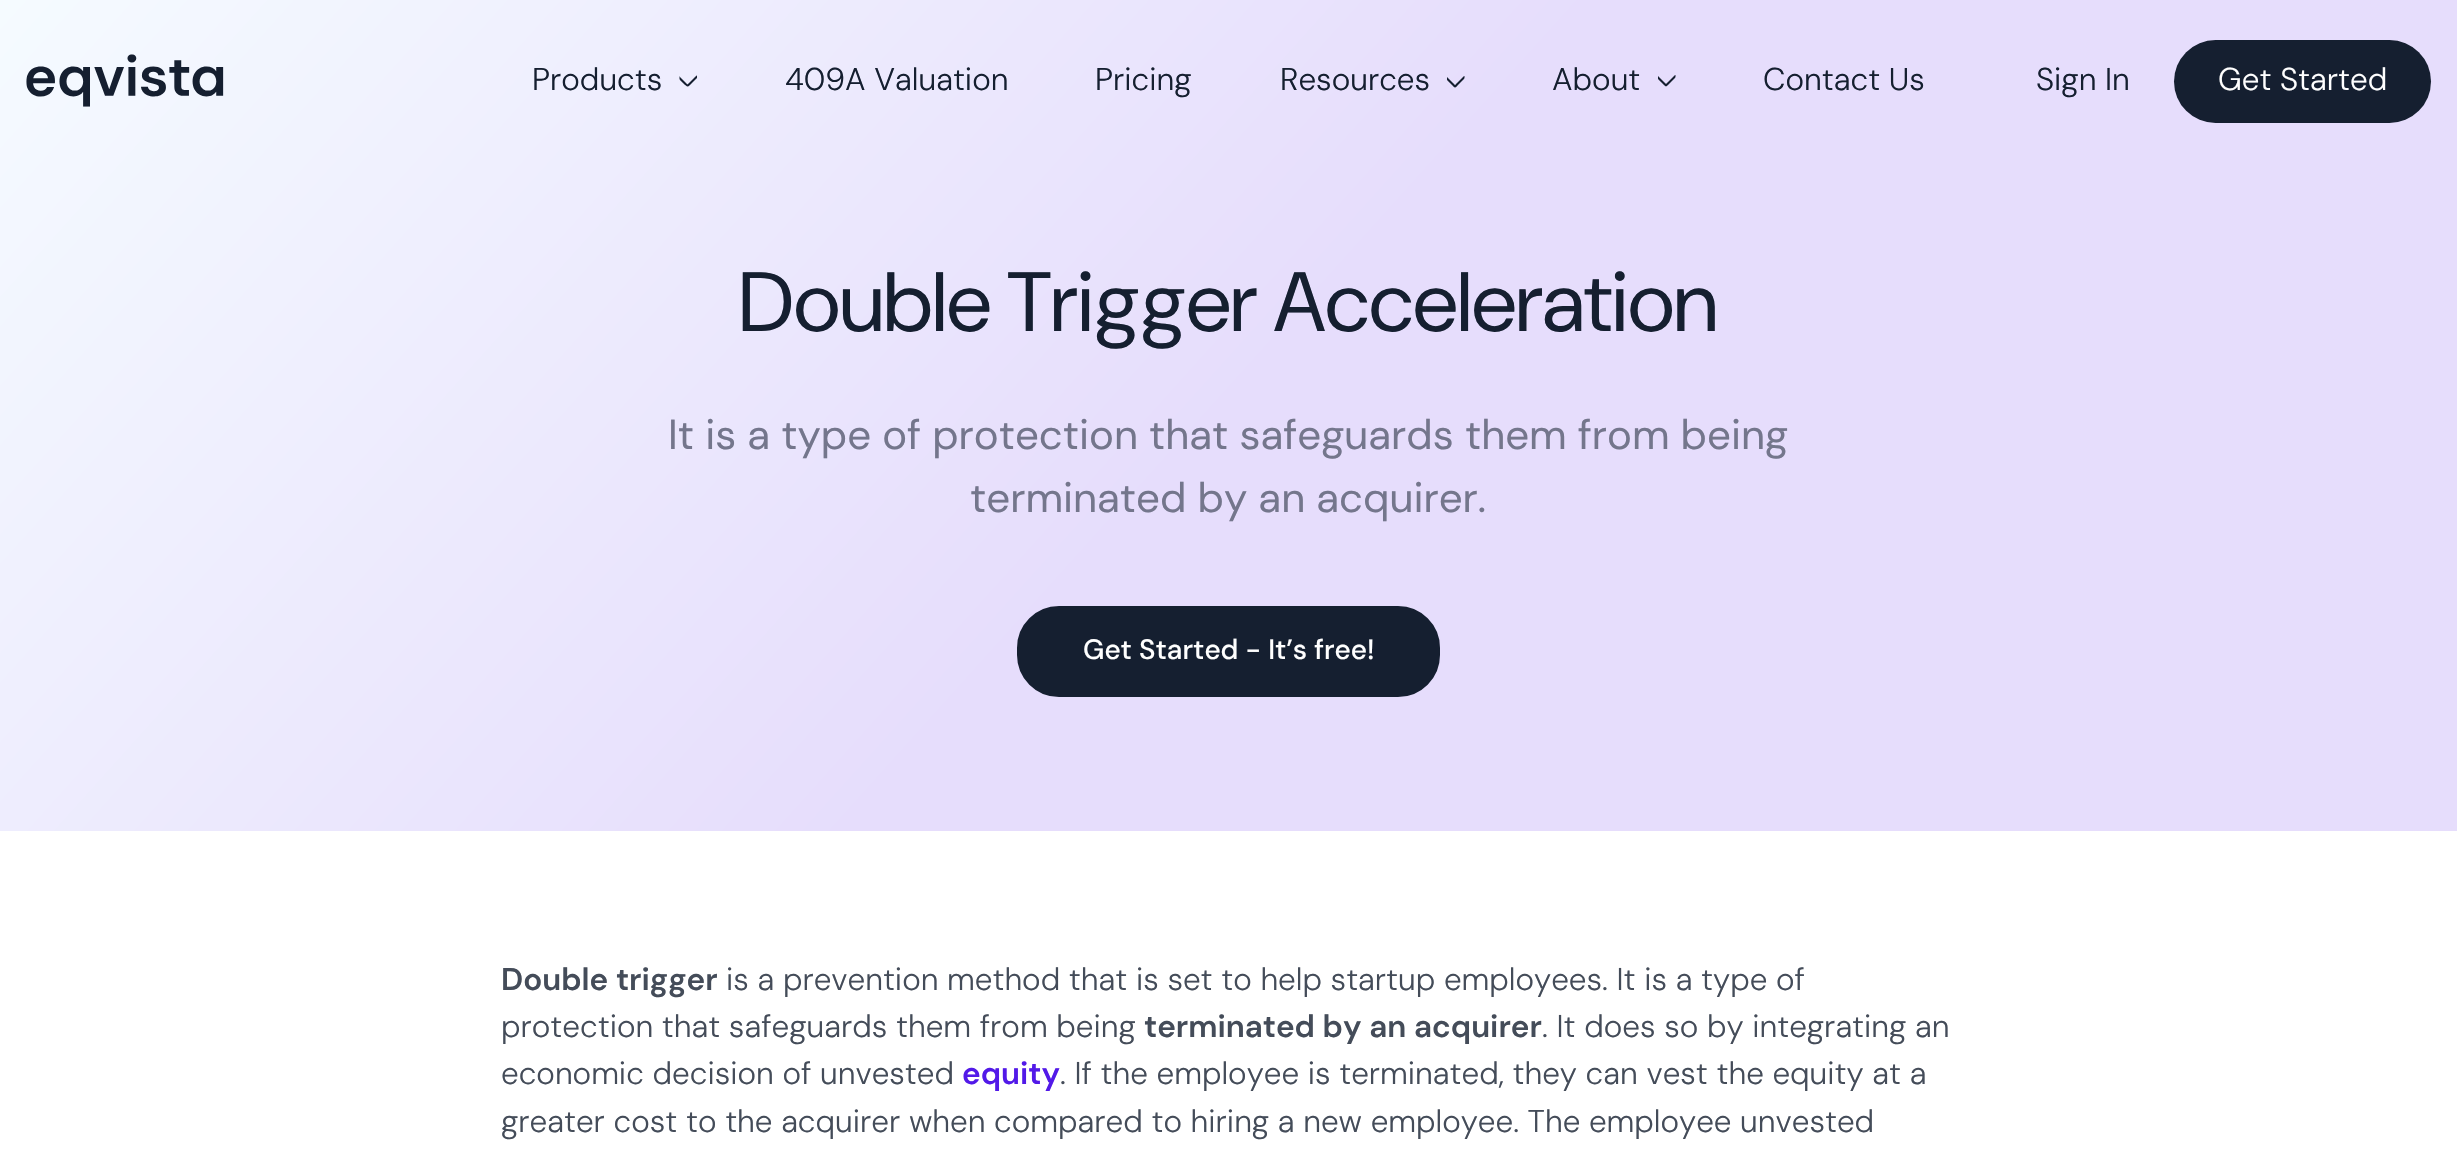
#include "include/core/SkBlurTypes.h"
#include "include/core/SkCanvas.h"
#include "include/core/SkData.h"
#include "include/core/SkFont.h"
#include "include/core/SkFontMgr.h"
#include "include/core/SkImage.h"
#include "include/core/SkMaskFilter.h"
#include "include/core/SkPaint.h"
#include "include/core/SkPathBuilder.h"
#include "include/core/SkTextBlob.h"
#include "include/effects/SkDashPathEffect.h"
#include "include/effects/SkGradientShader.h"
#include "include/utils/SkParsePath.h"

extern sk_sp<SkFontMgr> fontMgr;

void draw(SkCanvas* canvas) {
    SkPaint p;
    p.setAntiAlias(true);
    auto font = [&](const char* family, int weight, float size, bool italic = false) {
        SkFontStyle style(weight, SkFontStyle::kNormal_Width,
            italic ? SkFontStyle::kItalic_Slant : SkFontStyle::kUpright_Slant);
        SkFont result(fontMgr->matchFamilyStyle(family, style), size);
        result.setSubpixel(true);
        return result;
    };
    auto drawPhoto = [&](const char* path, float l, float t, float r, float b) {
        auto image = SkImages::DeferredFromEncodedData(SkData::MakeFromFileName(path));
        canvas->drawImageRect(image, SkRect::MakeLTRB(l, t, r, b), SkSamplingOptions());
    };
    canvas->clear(0xFFFFFFFF);
    {
        const SkColor colors[] = {0xFFE6DDFC, 0xFFF5FBFF, 0xFFFFFFFF};
        const float stops[] = {0.5f, 1, 1};
        const SkPoint ends[] = {{2114, 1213}, {343, -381}};
        p.setShader(SkGradientShader::MakeLinear(ends, colors, stops, 3, SkTileMode::kClamp));
        p.setAlpha(255);
    }
    canvas->drawRect(SkRect::MakeLTRB(0, 0, 2457, 831), p);
    drawPhoto("media/1.png", 26, 54, 224, 107);
    auto font1 = font("DM Sans", 300, 31.5f);
    p.setShader(nullptr);
    p.setColor(0xFF151F30);
    canvas->drawString("Products", 532, 90, font1, p);
    canvas->save();
    canvas->clipPath(SkPathBuilder().moveTo(697, 73).lineTo(697, 90.5f).lineTo(679.5f, 90.5f).lineTo(679.5f, 73).close().detach(), true);
    p.setStyle(SkPaint::kStroke_Style);
    p.setStrokeWidth(2.1f);
    p.setStrokeCap(SkPaint::kRound_Cap);
    p.setStrokeJoin(SkPaint::kRound_Join);
    canvas->drawPath(SkPathBuilder().moveTo(697, 76.5f).lineTo(689.5f, 84).cubicTo(687.5f, 86, 688, 86, 685.5f, 84).lineTo(678, 76.5f).detach(), p);
    canvas->restore();
    p.setStyle(SkPaint::kFill_Style);
    {
        const struct { const char* s; float x, y; } items[] = {
            {"409A Valuation", 785, 90},
            {"Pricing", 1095, 90},
            {"Resources", 1280, 90},
        };
        for (auto [s, x, y] : items) {
            canvas->drawString(s, x, y, font1, p);
        }
    }
    canvas->save();
    canvas->clipPath(SkPathBuilder().moveTo(1464.5f, 73).lineTo(1464.5f, 90.5f).lineTo(1447, 90.5f).lineTo(1447, 73).close().detach(), true);
    p.setStyle(SkPaint::kStroke_Style);
    canvas->drawPath(SkPathBuilder().moveTo(1464.5f, 77).lineTo(1457, 84.5f).cubicTo(1455, 87, 1455.5f, 87, 1453, 84.5f).lineTo(1445.5f, 77).detach(), p);
    canvas->restore();
    p.setStyle(SkPaint::kFill_Style);
    canvas->drawString("About", 1552, 90, font1, p);
    canvas->save();
    canvas->clipPath(SkPathBuilder().moveTo(1675.5f, 73).lineTo(1675.5f, 90.5f).lineTo(1658, 90.5f).lineTo(1658, 73).close().detach(), true);
    p.setStyle(SkPaint::kStroke_Style);
    canvas->drawPath(SkPathBuilder().moveTo(1675.5f, 76).lineTo(1668, 83.5f).cubicTo(1665.5f, 86, 1666.5f, 86, 1664, 83.5f).lineTo(1656.5f, 76).detach(), p);
    canvas->restore();
    p.setStyle(SkPaint::kFill_Style);
    canvas->drawString("Contact Us", 1763, 90, font1, p);
    canvas->drawString("Sign In", 2036, 90, font1, p);
    canvas->drawRoundRect(SkRect::MakeLTRB(2174, 40, 2431, 123), 41.5f, 41.5f, p);
    p.setColor(0xFFFFFFFF);
    canvas->drawString("Get Started", 2218, 90, font1, p);
    auto font2 = font("DM Sans", 400, 84);
    p.setColor(0xFF151F30);
    canvas->drawString("Double Trigger Acceleration", 739, 331, font2, p);
    auto font3 = font("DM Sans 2", 400, 42);
    p.setColor(0xFF74768C);
    canvas->drawString("It is a type of protection that safeguards them from being", 668, 449, font3, p);
    canvas->drawString("terminated by an acquirer.", 970, 512, font3, p);
    p.setColor(0xFF151F30);
    canvas->drawRoundRect(SkRect::MakeLTRB(1019, 608, 1438, 695), 40, 40, p);
    p.setStyle(SkPaint::kStroke_Style);
    p.setStrokeWidth(4);
    p.setStrokeCap(SkPaint::kButt_Cap);
    p.setStrokeJoin(SkPaint::kMiter_Join);
    canvas->drawRoundRect(SkRect::MakeLTRB(1019, 608, 1438, 695), 40, 40, p);
    auto font4 = font("DM Sans", 500, 28);
    p.setStyle(SkPaint::kFill_Style);
    p.setColor(0xFFFFFFFF);
    canvas->drawString("Get Started - It’s free!", 1083, 659, font4, p);
    auto font5 = font("DM Sans", 600, 31.5f);
    p.setColor(0xFF444C59);
    canvas->drawString("Double trigger", 501, 990, font5, p);
    canvas->drawString("is a prevention method that is set to help startup employees. It is a type of", 726, 990, font1, p);
    canvas->drawString("protection that safeguards them from being", 501, 1037, font1, p);
    canvas->drawString("terminated by an acquirer", 1144, 1037, font5, p);
    canvas->drawString(". It does so by integrating an", 1542, 1037, font1, p);
    canvas->drawString("economic decision of unvested", 501, 1084, font1, p);
    p.setColor(0xFF5219E8);
    canvas->drawString("equity", 962, 1084, font5, p);
    p.setColor(0xFF444C59);
    canvas->drawString(". If the employee is terminated, they can vest the equity at a", 1060, 1084, font1, p);
    canvas->drawString("greater cost to the acquirer when compared to hiring a new employee. The employee unvested", 501, 1132, font1, p);
}
